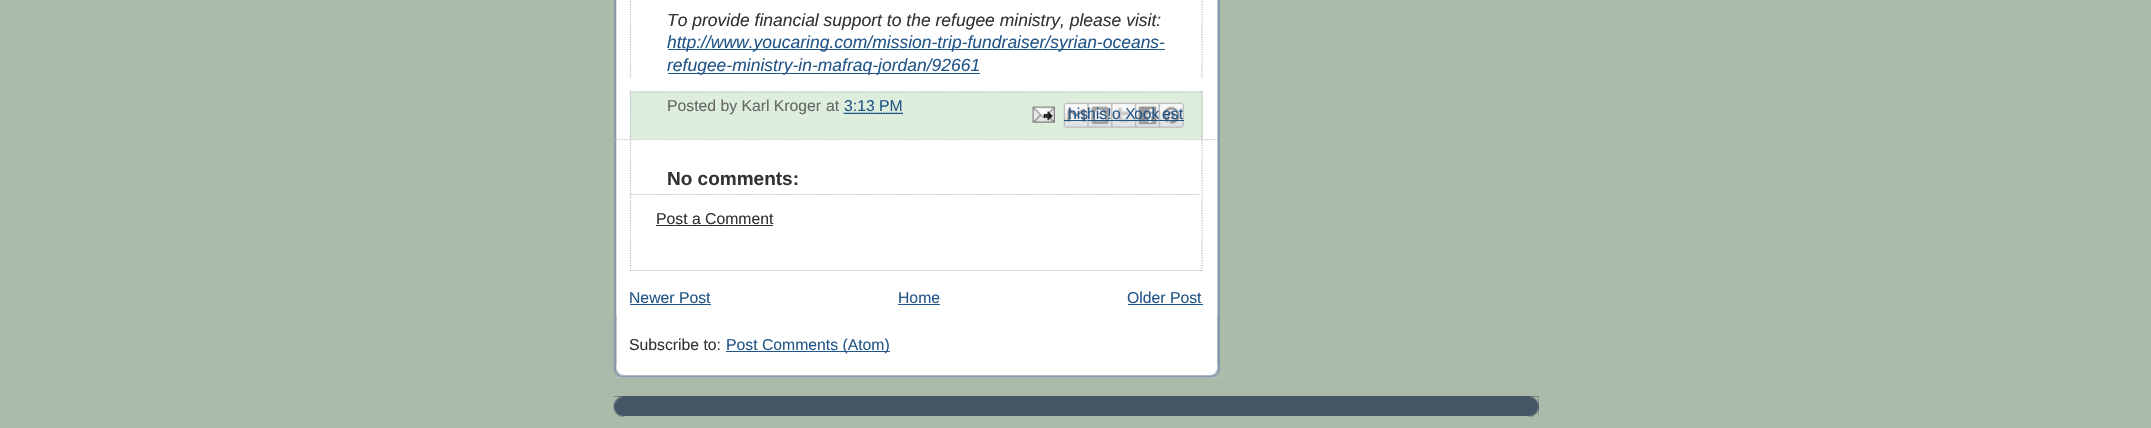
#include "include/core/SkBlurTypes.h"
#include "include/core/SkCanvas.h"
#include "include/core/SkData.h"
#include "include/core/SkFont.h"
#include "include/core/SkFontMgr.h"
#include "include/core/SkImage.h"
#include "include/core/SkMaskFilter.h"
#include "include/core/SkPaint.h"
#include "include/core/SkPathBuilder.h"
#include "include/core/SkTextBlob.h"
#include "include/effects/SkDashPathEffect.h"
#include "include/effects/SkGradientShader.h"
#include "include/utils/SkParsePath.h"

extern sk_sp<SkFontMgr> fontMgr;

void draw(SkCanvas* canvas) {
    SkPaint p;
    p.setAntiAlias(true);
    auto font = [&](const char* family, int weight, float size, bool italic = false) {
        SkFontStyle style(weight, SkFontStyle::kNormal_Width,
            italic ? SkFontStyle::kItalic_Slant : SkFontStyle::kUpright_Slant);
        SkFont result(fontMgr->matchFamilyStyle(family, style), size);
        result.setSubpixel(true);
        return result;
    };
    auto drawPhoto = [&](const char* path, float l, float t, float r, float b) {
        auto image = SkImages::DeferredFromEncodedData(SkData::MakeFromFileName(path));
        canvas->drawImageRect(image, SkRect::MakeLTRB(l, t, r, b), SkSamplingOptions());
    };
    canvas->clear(0xFFAABBAA);
    p.setColor(0xFFFFFFFF);
    canvas->drawRect(SkRect::MakeLTRB(614, 0, 1220, 378), p);
    drawPhoto("media/1.png", 613, 315, 1220, 378);
    drawPhoto("media/2.png", 614, 0, 1220, 366);
    p.setStyle(SkPaint::kStroke_Style);
    p.setStrokeWidth(1.2f);
    p.setColor(0xFFBBBBBB);
    p.setPathEffect(SkDashPathEffect::Make({{1.25f, 1.25f}}, 0));
    canvas->drawPath(SkPathBuilder().moveTo(614, 139.5f).lineTo(1219, 139.5f).detach(), p);
    p.setPathEffect(nullptr);
    p.setPathEffect(SkDashPathEffect::Make({{1.25f, 1.25f}}, 0));
    canvas->drawPath(SkPathBuilder().moveTo(1202, -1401).lineTo(1202, 79).detach(), p);
    p.setPathEffect(nullptr);
    p.setPathEffect(SkDashPathEffect::Make({{1.25f, 1.25f}}, 0));
    canvas->drawPath(SkPathBuilder().moveTo(630.5f, -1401).lineTo(630.5f, 79).detach(), p);
    p.setPathEffect(nullptr);
    auto font1 = font("Liberation Sans", 400, 17.5f, true);
    p.setStyle(SkPaint::kFill_Style);
    p.setColor(0xFF333333);
    canvas->drawString("To provide financial support to the refugee ministry, please visit:", 667, 26, font1, p);
    p.setColor(0xFF225588);
    canvas->drawRect(SkRect::MakeLTRB(668, 49, 1165, 50), p);
    canvas->drawString("http://www.youcaring.com/mission-trip-fundraiser/syrian-oceans-", 667, 48, font1, p);
    canvas->drawRect(SkRect::MakeLTRB(668, 73, 980, 74), p);
    canvas->drawString("refugee-ministry-in-mafraq-jordan/92661", 667, 71, font1, p);
    p.setColor(0xFFDDEEDD);
    canvas->drawRect(SkRect::MakeLTRB(630, 91, 1203, 139), p);
    p.setStyle(SkPaint::kStroke_Style);
    p.setColor(0xFFBBBBBB);
    p.setPathEffect(SkDashPathEffect::Make({{1.25f, 1.25f}}, 0));
    canvas->drawPath(SkPathBuilder().moveTo(630, 92).lineTo(1202.5f, 92).detach(), p);
    p.setPathEffect(nullptr);
    p.setPathEffect(SkDashPathEffect::Make({{1.25f, 1.25f}}, 0));
    canvas->drawPath(SkPathBuilder().moveTo(1202, 91).lineTo(1202, 139).detach(), p);
    p.setPathEffect(nullptr);
    p.setPathEffect(SkDashPathEffect::Make({{1.25f, 1.25f}}, 0));
    canvas->drawPath(SkPathBuilder().moveTo(630.5f, 91).lineTo(630.5f, 139).detach(), p);
    p.setPathEffect(nullptr);
    auto font2 = font("Liberation Sans", 400, 15.75f);
    p.setStyle(SkPaint::kFill_Style);
    p.setColor(0xFF666666);
    canvas->drawString("Posted by Karl Kroger", 667, 111, font2, p);
    canvas->drawString("at", 826, 111, font2, p);
    p.setColor(0xFF225588);
    canvas->drawString("3:13 PM", 844, 111, font2, p);
    p.setStyle(SkPaint::kStroke_Style);
    p.setPathEffect(SkDashPathEffect::Make({{1.25f, 1.25f}}, 0));
    canvas->drawPath(SkPathBuilder().moveTo(843.5f, 113).lineTo(902.5f, 113).detach(), p);
    p.setPathEffect(nullptr);
    p.setStyle(SkPaint::kFill_Style);
    canvas->drawRect(SkRect::MakeLTRB(844, 113, 903, 114), p);
    drawPhoto("media/3.png", 1032, 106, 1055, 123);
    drawPhoto("media/4.png", 1063, 102, 1089, 128);
    canvas->drawString("his", 1068, 119, font2, p);
    canvas->drawRect(SkRect::MakeLTRB(1064, 120, 1089, 121), p);
    drawPhoto("media/5.png", 1087, 102, 1113, 128);
    canvas->drawString("his!", 1087, 119, font2, p);
    canvas->drawRect(SkRect::MakeLTRB(1088, 120, 1113, 121), p);
    drawPhoto("media/6.png", 1111, 102, 1137, 128);
    canvas->drawString("o X", 1112, 119, font2, p);
    canvas->drawRect(SkRect::MakeLTRB(1111, 120, 1136, 121), p);
    drawPhoto("media/7.png", 1135, 102, 1160, 128);
    canvas->save();
    canvas->clipRect(SkRect::MakeLTRB(1135, 103, 1160, 128));
    canvas->drawString("ook", 1134, 119, font2, p);
    canvas->restore();
    canvas->drawRect(SkRect::MakeLTRB(1135, 120, 1160, 121), p);
    drawPhoto("media/8.png", 1158, 102, 1184, 128);
    canvas->drawString("est", 1162, 119, font2, p);
    canvas->drawRect(SkRect::MakeLTRB(1159, 120, 1184, 121), p);
    p.setStyle(SkPaint::kStroke_Style);
    p.setColor(0xFFBBBBBB);
    p.setPathEffect(SkDashPathEffect::Make({{1.25f, 1.25f}}, 0));
    canvas->drawPath(SkPathBuilder().moveTo(1202, 140).lineTo(1202, 271).detach(), p);
    p.setPathEffect(nullptr);
    p.setPathEffect(SkDashPathEffect::Make({{1.25f, 1.25f}}, 0));
    canvas->drawPath(SkPathBuilder().moveTo(630, 270.5f).lineTo(1202.5f, 270.5f).detach(), p);
    p.setPathEffect(nullptr);
    p.setPathEffect(SkDashPathEffect::Make({{1.25f, 1.25f}}, 0));
    canvas->drawPath(SkPathBuilder().moveTo(630.5f, 140).lineTo(630.5f, 271).detach(), p);
    p.setPathEffect(nullptr);
    p.setPathEffect(SkDashPathEffect::Make({{1.25f, 1.25f}}, 0));
    canvas->drawPath(SkPathBuilder().moveTo(631, 194.5f).lineTo(1201, 194.5f).detach(), p);
    p.setPathEffect(nullptr);
    auto font3 = font("Liberation Sans", 700, 19);
    p.setStyle(SkPaint::kFill_Style);
    p.setColor(0xFF333333);
    canvas->drawString("No comments:", 667, 185, font3, p);
    canvas->drawString("Post a Comment", 656, 224, font2, p);
    canvas->drawRect(SkRect::MakeLTRB(656, 225, 773, 226), p);
    p.setColor(0xFF225588);
    canvas->drawString("Newer Post", 629, 303, font2, p);
    canvas->drawRect(SkRect::MakeLTRB(630, 304, 711, 305), p);
    canvas->drawString("Home", 898, 303, font2, p);
    canvas->drawRect(SkRect::MakeLTRB(898, 304, 940, 305), p);
    canvas->drawString("Older Post", 1127, 303, font2, p);
    canvas->drawRect(SkRect::MakeLTRB(1128, 304, 1203, 305), p);
    p.setColor(0xFF333333);
    canvas->drawString("Subscribe to:", 629, 350, font2, p);
    p.setColor(0xFF225588);
    canvas->drawRect(SkRect::MakeLTRB(726, 351, 890, 352), p);
    canvas->drawString("Post Comments (Atom)", 726, 350, font2, p);
    p.setColor(0xFF445566);
    canvas->drawRect(SkRect::MakeLTRB(614, 396, 1539, 416), p);
    drawPhoto("media/9.png", 613, 396, 1539, 407);
    drawPhoto("media/10.png", 613, 406, 1539, 417);
}
